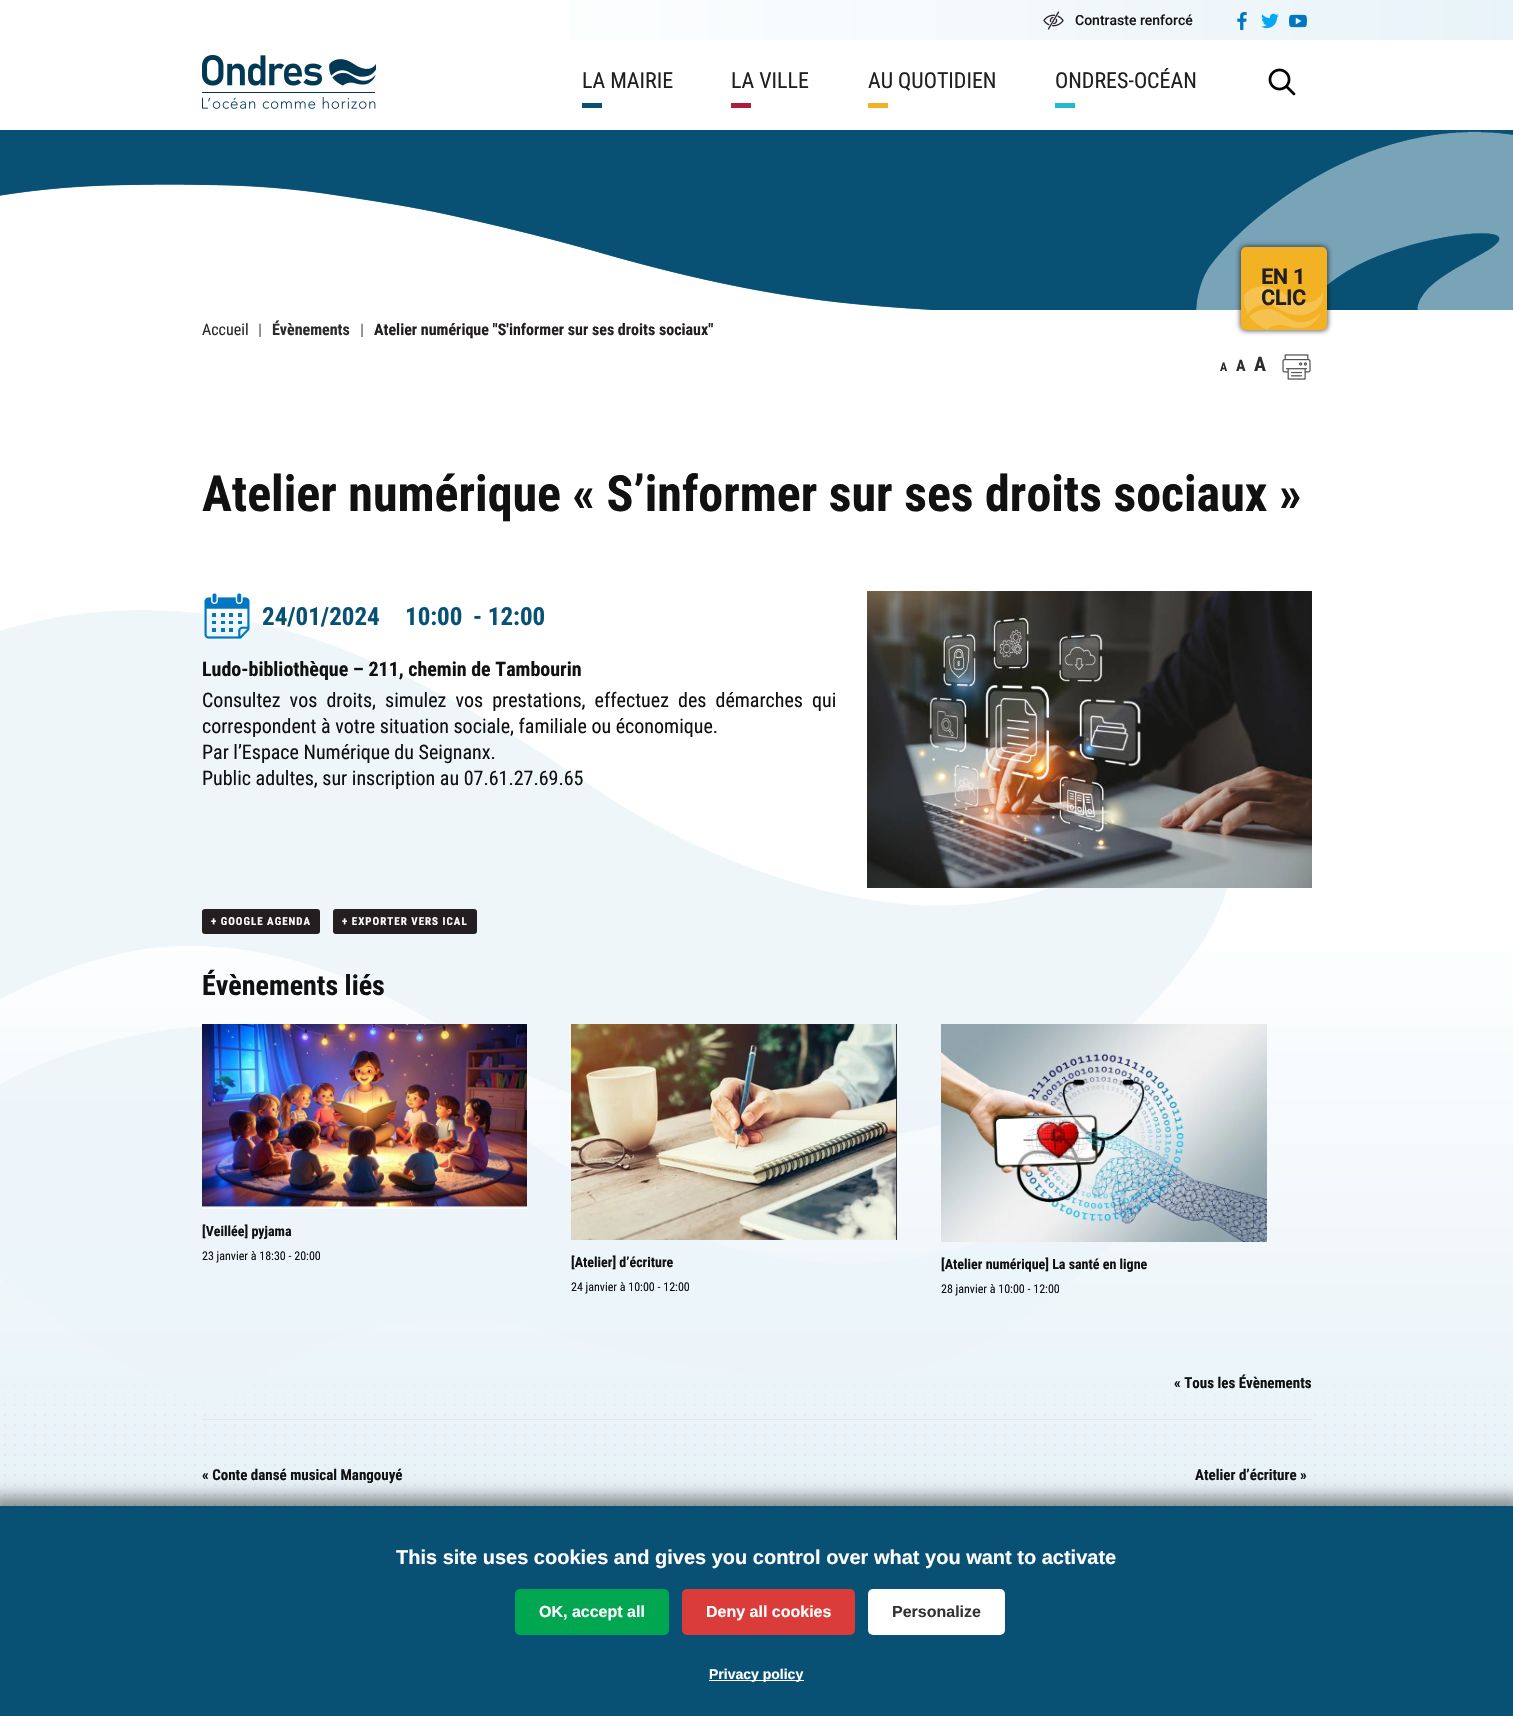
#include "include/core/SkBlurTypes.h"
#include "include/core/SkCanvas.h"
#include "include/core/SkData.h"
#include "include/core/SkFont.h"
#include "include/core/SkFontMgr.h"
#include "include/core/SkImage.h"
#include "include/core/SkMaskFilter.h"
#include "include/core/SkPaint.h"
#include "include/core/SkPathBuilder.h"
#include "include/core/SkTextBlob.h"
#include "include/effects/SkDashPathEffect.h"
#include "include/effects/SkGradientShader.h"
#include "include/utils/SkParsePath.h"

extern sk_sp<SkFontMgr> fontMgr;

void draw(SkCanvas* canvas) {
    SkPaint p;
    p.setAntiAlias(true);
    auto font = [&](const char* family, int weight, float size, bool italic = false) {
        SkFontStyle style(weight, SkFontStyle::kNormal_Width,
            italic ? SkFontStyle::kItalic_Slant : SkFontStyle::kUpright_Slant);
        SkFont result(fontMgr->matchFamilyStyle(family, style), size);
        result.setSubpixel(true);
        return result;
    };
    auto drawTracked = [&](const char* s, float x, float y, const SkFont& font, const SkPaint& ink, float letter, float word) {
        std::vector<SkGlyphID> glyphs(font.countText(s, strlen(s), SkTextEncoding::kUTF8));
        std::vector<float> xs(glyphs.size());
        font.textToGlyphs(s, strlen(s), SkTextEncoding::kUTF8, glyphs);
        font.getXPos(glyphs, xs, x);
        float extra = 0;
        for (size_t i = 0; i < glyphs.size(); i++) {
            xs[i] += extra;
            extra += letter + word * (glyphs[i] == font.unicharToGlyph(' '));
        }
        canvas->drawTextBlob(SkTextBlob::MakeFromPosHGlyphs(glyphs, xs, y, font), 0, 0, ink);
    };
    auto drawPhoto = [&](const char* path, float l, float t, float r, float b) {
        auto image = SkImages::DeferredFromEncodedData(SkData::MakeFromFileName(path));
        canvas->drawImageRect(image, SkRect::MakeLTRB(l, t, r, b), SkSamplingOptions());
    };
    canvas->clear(0xFFFFFFFF);
    {
        const SkColor colors[] = {0xFFFFFFFF, 0xFFE8F3F9};
        const float stops[] = {0.3f, 1};
        const SkPoint ends[] = {{0, 20}, {1513, 20}};
        p.setShader(SkGradientShader::MakeLinear(ends, colors, stops, 2, SkTileMode::kClamp));
        p.setAlpha(255);
    }
    canvas->drawRect(SkRect::MakeLTRB(569, 0, 1513, 40), p);
    drawPhoto("media/1.png", 1043, 11, 1064, 30);
    auto font1 = font("Roboto", 500, 14);
    p.setShader(nullptr);
    p.setColor(0xFF171515);
    canvas->drawString("Contraste renforcé", 1075, 25, font1, p);
    drawPhoto("media/2.png", 1237, 12, 1247, 30);
    drawPhoto("media/3.png", 1261, 13, 1279, 29);
    drawPhoto("media/4.png", 1289, 14, 1307, 28);
    drawPhoto("media/5.png", 202, 55, 376, 109);
    auto font2 = font("Roboto Condensed", 400, 22);
    p.setColor(0xFF231F20);
    canvas->drawString("LA MAIRIE", 582, 88, font2, p);
    p.setColor(0xFF095174);
    canvas->drawRect(SkRect::MakeLTRB(582, 103, 602, 108), p);
    p.setColor(0xFF231F20);
    canvas->drawString("LA VILLE", 731, 88, font2, p);
    p.setColor(0xFFAD1D3D);
    canvas->drawRect(SkRect::MakeLTRB(731, 103, 751, 108), p);
    p.setColor(0xFF231F20);
    canvas->drawString("AU QUOTIDIEN", 868, 88, font2, p);
    p.setColor(0xFFF3B223);
    canvas->drawRect(SkRect::MakeLTRB(868, 103, 888, 108), p);
    p.setColor(0xFF231F20);
    canvas->drawString("ONDRES-OCÉAN", 1055, 88, font2, p);
    p.setColor(0xFF25B9CD);
    canvas->drawRect(SkRect::MakeLTRB(1055, 103, 1075, 108), p);
    drawPhoto("media/6.png", 1268, 68, 1296, 96);
    p.setColor(0xFF095174);
    canvas->drawRect(SkRect::MakeLTRB(0, 130, 1513, 310), p);
    drawPhoto("media/7.png", 1196, 131, 1513, 310);
    drawPhoto("media/8.png", 0, 184, 933, 310);
    p.setColor(0x99000000);
    p.setMaskFilter(SkMaskFilter::MakeBlur(kNormal_SkBlurStyle, 2.5f));
    canvas->drawRoundRect(SkRect::MakeLTRB(1240, 246, 1328, 331), 6, 6, p);
    p.setMaskFilter(nullptr);
    p.setColor(0xFFF3B223);
    canvas->drawRoundRect(SkRect::MakeLTRB(1241, 247, 1327, 330), 5, 5, p);
    drawPhoto("media/9.png", 1244, 286, 1323, 330);
    auto font3 = font("Roboto", 700, 21);
    p.setColor(0xFF231F20);
    canvas->drawString("EN 1", 1261, 284, font3, p);
    canvas->drawString("CLIC", 1261, 305, font3, p);
    auto font4 = font("Roboto Condensed", 400, 16);
    p.setColor(0xFF2D2B2B);
    canvas->drawString("Accueil", 202, 335, font4, p);
    auto font5 = font("Roboto Condensed", 700, 16);
    p.setColor(0xFF6C757D);
    canvas->drawString("|", 258, 335, font5, p);
    p.setColor(0xFF2D2B2B);
    canvas->drawString("Évènements", 272, 335, font5, p);
    p.setColor(0xFF6C757D);
    canvas->drawString("|", 360, 335, font5, p);
    p.setColor(0xFF231F20);
    canvas->drawString("Atelier numérique \"S'informer sur ses droits sociaux\"", 374, 335, font5, p);
    auto font6 = font("Roboto Condensed", 700, 12);
    p.setColor(0xFF2D2B2B);
    canvas->drawString("A", 1220, 371, font6, p);
    canvas->drawString("A", 1236, 371, font5, p);
    auto font7 = font("Roboto Condensed", 700, 20);
    canvas->drawString("A", 1254, 371, font7, p);
    drawPhoto("media/10.png", 1282, 354, 1311, 380);
    {
        const SkColor colors[] = {0xFFFFFFFF, 0xFFE3F0F7};
        const float stops[] = {0, 1};
        const SkPoint ends[] = {{757, 888}, {757, 1588}};
        p.setShader(SkGradientShader::MakeLinear(ends, colors, stops, 2, SkTileMode::kClamp));
        p.setAlpha(255);
    }
    canvas->drawRect(SkRect::MakeLTRB(0, 951, 1513, 1506), p);
    drawPhoto("media/17.png", 4, 1375, 1506, 1506);
    drawPhoto("media/11.png", 0, 610, 1228, 1406);
    auto font8 = font("Roboto Condensed", 700, 50);
    p.setShader(nullptr);
    p.setColor(0xFF111111);
    canvas->drawString("Atelier numérique « S’informer sur ses droits sociaux »", 202, 511, font8, p);
    drawPhoto("media/12.png", 204, 593, 250, 639);
    auto font9 = font("Roboto Condensed", 700, 25);
    p.setColor(0xFF095174);
    {
        const struct { const char* s; float x, y; } items[] = {
            {"24/01/2024", 262, 625},
            {"10:00", 405, 625},
            {"- 12:00", 473, 625},
        };
        for (auto [s, x, y] : items) {
            canvas->drawString(s, x, y, font9, p);
        }
    }
    p.setColor(0xFF111111);
    canvas->drawString("Ludo-bibliothèque – 211, chemin de Tambourin", 202, 676, font7, p);
    auto font10 = font("Roboto Condensed", 400, 20);
    drawTracked("Consultez vos droits, simulez vos prestations, effectuez des démarches qui", 202, 707, font10, p, 0, 4.5f);
    {
        const struct { const char* s; float x, y; } items[] = {
            {"correspondent à votre situation sociale, familiale ou économique.", 202, 733},
            {"Par l’Espace Numérique du Seignanx.", 202, 759},
            {"Public adultes, sur inscription au 07.61.27.69.65", 202, 785},
        };
        for (auto [s, x, y] : items) {
            canvas->drawString(s, x, y, font10, p);
        }
    }
    drawPhoto("media/13.png", 867, 591, 1312, 888);
    p.setColor(0xFF231F20);
    canvas->drawRoundRect(SkRect::MakeLTRB(202, 909, 320, 934), 3, 3, p);
    auto font11 = font("Roboto Condensed", 700, 11);
    p.setColor(0xFFFFFFFF);
    drawTracked("+ GOOGLE AGENDA", 211, 925, font11, p, 1, 0);
    p.setColor(0xFF231F20);
    canvas->drawRoundRect(SkRect::MakeLTRB(333, 909, 477, 934), 3, 3, p);
    p.setColor(0xFFFFFFFF);
    drawTracked("+ EXPORTER VERS ICAL", 342, 925, font11, p, 1, 0);
    auto font12 = font("Roboto Condensed", 700, 28);
    p.setColor(0xFF111111);
    canvas->drawString("Évènements liés", 202, 995, font12, p);
    drawPhoto("media/14.png", 202, 1024, 527, 1209);
    auto font13 = font("Roboto Condensed", 700, 14);
    canvas->drawString("[Veillée] pyjama", 202, 1236, font13, p);
    auto font14 = font("Roboto Condensed", 400, 12);
    canvas->drawString("23 janvier à 18:30 - 20:00", 202, 1260, font14, p);
    drawPhoto("media/15.png", 571, 1024, 897, 1240);
    canvas->drawString("[Atelier] d’écriture", 571, 1267, font13, p);
    canvas->drawString("24 janvier à 10:00 - 12:00", 571, 1291, font14, p);
    drawPhoto("media/16.png", 941, 1024, 1267, 1242);
    canvas->drawString("[Atelier numérique] La santé en ligne", 941, 1269, font13, p);
    canvas->drawString("28 janvier à 10:00 - 12:00", 941, 1293, font14, p);
    auto font15 = font("Roboto Condensed", 700, 15);
    canvas->drawString("« Tous les Évènements", 1174, 1388, font15, p);
    p.setColor(0xFFE5E5E5);
    canvas->drawRect(SkRect::MakeLTRB(202, 1419, 1312, 1420), p);
    p.setColor(0xFF111111);
    canvas->drawString("« Conte dansé musical Mangouyé", 202, 1480, font15, p);
    canvas->drawString("Atelier d’écriture »", 1195, 1480, font15, p);
    p.setColor(0x66000000);
    p.setMaskFilter(SkMaskFilter::MakeBlur(kNormal_SkBlurStyle, 7.5f));
    canvas->drawRect(SkRect::MakeLTRB(-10, 1496, 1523, 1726), p);
    p.setMaskFilter(nullptr);
    p.setColor(0xFF095174);
    canvas->drawRect(SkRect::MakeLTRB(0, 1506, 1513, 1716), p);
    auto font16 = font("Liberation Sans", 700, 20);
    p.setColor(0xFFFFFFFF);
    canvas->drawString("This site uses cookies and gives you control over what you want to activate", 396, 1564, font16, p);
    p.setColor(0xFF00A650);
    canvas->drawRoundRect(SkRect::MakeLTRB(515, 1589, 669, 1635), 5, 5, p);
    auto font17 = font("Liberation Sans", 700, 16);
    p.setColor(0xFFFFFFFF);
    canvas->drawString("OK, accept all", 539, 1617, font17, p);
    p.setColor(0xFFDA3C39);
    canvas->drawRoundRect(SkRect::MakeLTRB(682, 1589, 855, 1635), 5, 5, p);
    p.setColor(0xFFFFFFFF);
    canvas->drawString("Deny all cookies", 706, 1617, font17, p);
    canvas->drawRoundRect(SkRect::MakeLTRB(868, 1589, 1005, 1635), 5, 5, p);
    p.setColor(0xFF333333);
    canvas->drawString("Personalize", 892, 1617, font17, p);
    p.setColor(0xFFFFFFFF);
    canvas->drawRect(SkRect::MakeLTRB(709, 1680, 804, 1681), p);
    auto font18 = font("Liberation Sans", 700, 14);
    canvas->drawString("Privacy policy", 709, 1679, font18, p);
}
